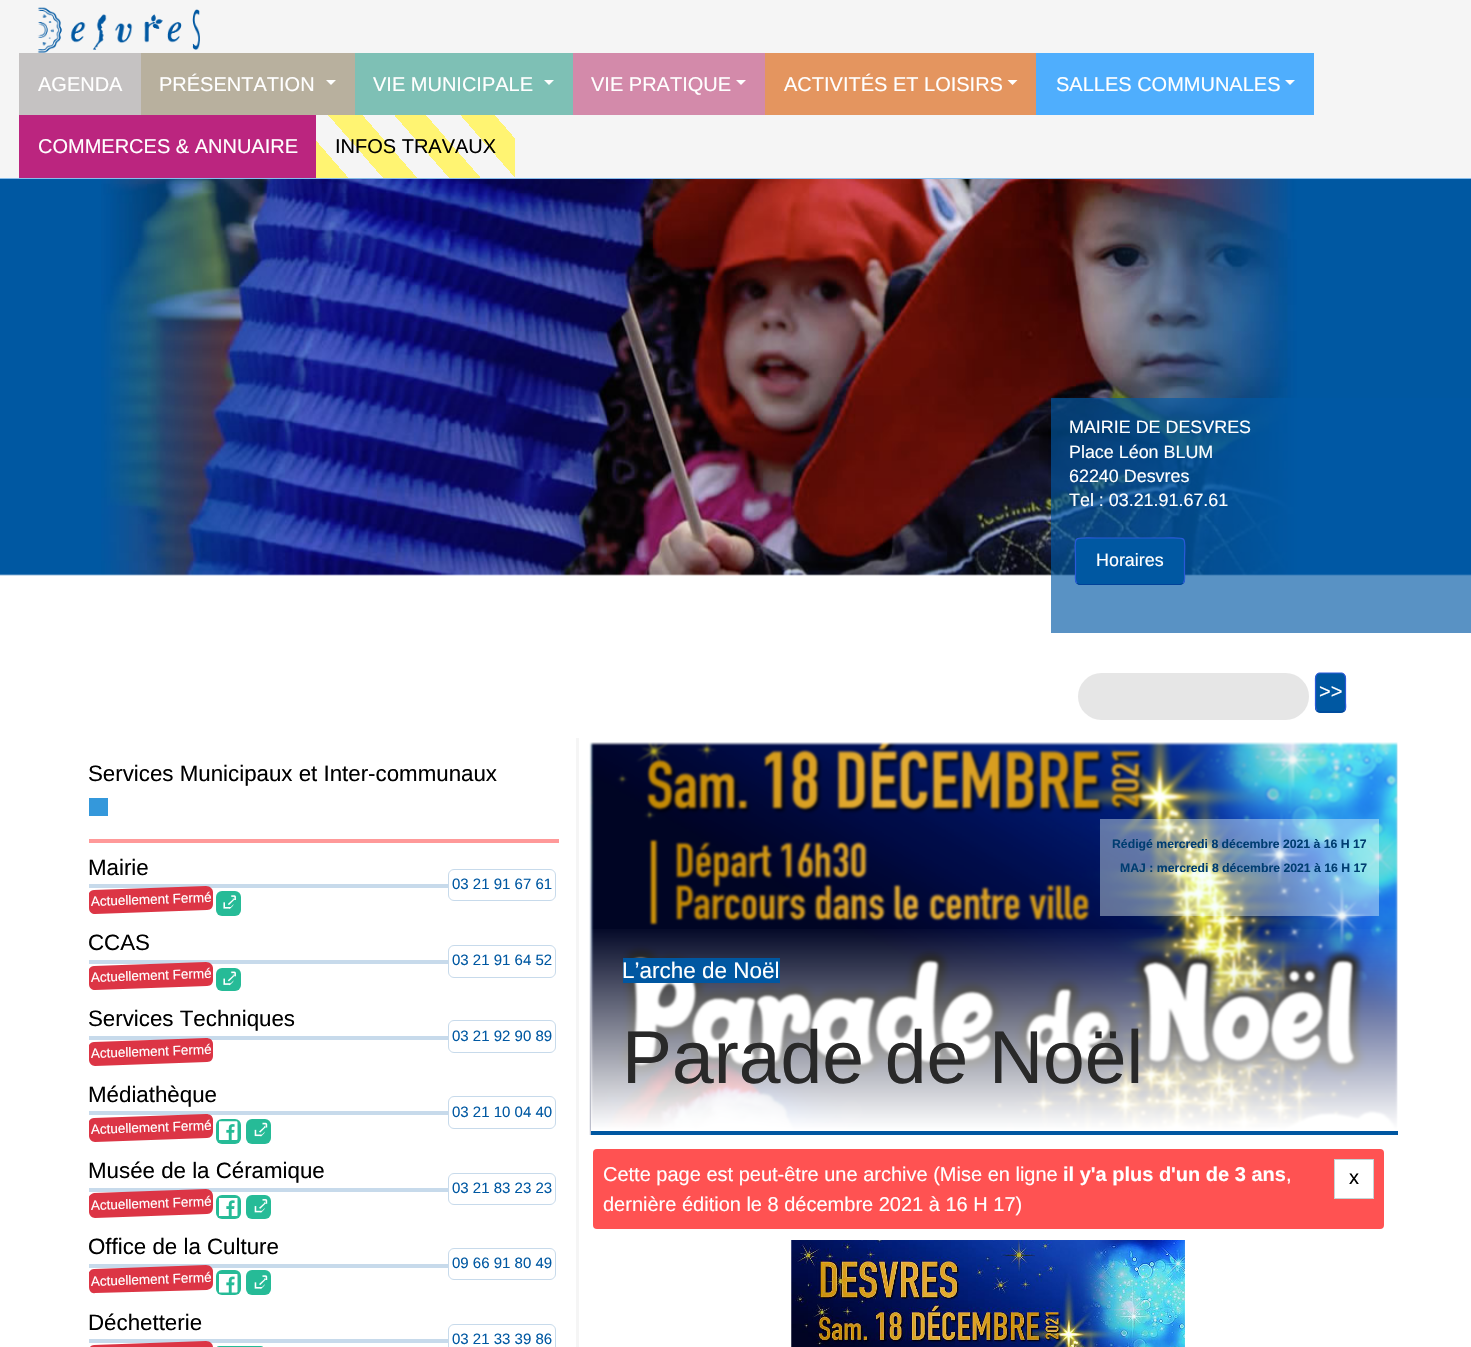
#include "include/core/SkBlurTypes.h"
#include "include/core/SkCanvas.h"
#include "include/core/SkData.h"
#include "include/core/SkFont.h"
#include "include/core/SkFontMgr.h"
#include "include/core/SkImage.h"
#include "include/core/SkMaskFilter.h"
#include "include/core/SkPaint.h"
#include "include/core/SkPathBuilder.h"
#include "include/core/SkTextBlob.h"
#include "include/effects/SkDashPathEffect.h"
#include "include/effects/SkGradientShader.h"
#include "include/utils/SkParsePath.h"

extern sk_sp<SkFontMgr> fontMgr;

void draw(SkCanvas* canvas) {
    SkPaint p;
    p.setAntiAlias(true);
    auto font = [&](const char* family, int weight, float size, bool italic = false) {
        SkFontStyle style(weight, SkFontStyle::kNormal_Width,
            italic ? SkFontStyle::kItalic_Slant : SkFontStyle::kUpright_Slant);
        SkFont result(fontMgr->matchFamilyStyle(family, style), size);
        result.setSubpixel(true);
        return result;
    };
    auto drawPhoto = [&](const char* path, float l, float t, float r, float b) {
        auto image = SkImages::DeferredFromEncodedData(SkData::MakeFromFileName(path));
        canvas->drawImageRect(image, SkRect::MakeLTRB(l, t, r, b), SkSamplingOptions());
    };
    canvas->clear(0xFFFFFFFF);
    drawPhoto("media/1.png", 0, 179, 1471, 576);
    p.setColor(0xFFF5F5F5);
    canvas->drawRect(SkRect::MakeLTRB(0, 0, 1471, 178), p);
    p.setColor(0xFF87BDEB);
    canvas->drawRect(SkRect::MakeLTRB(0, 178, 1471, 179), p);
    drawPhoto("media/2.png", 37, 7, 200, 53);
    p.setColor(0xFFC5C2C2);
    canvas->drawRect(SkRect::MakeLTRB(19, 53, 141, 115), p);
    auto font1 = font("Liberation Sans", 400, 20);
    p.setColor(0xFFFFFFFF);
    canvas->drawString("AGENDA", 38, 91, font1, p);
    p.setColor(0xFFB8B09E);
    canvas->drawRect(SkRect::MakeLTRB(141, 53, 355, 115), p);
    p.setColor(0xFFFFFFFF);
    canvas->drawString("PRÉSENTATION", 159, 91, font1, p);
    canvas->drawPath(SkPathBuilder().moveTo(326, 80).lineTo(336, 80).lineTo(331, 85).close().detach(), p);
    p.setColor(0xFF7EC0B5);
    canvas->drawRect(SkRect::MakeLTRB(355, 53, 573, 115), p);
    p.setColor(0xFFFFFFFF);
    canvas->drawString("VIE MUNICIPALE", 373, 91, font1, p);
    canvas->drawPath(SkPathBuilder().moveTo(544, 80).lineTo(554, 80).lineTo(549, 85).close().detach(), p);
    p.setColor(0xFFD38AAA);
    canvas->drawRect(SkRect::MakeLTRB(573, 53, 765, 115), p);
    p.setColor(0xFFFFFFFF);
    canvas->drawString("VIE PRATIQUE", 591, 91, font1, p);
    canvas->drawPath(SkPathBuilder().moveTo(736, 80).lineTo(746, 80).lineTo(741, 85).close().detach(), p);
    p.setColor(0xFFE4955F);
    canvas->drawRect(SkRect::MakeLTRB(765, 53, 1036, 115), p);
    p.setColor(0xFFFFFFFF);
    canvas->drawString("ACTIVITÉS ET LOISIRS", 784, 91, font1, p);
    canvas->drawPath(SkPathBuilder().moveTo(1007.5f, 80).lineTo(1017.5f, 80).lineTo(1012.5f, 85).close().detach(), p);
    p.setColor(0xFF4FAEFD);
    canvas->drawRect(SkRect::MakeLTRB(1036, 53, 1314, 115), p);
    p.setColor(0xFFFFFFFF);
    canvas->drawString("SALLES COMMUNALES", 1056, 91, font1, p);
    canvas->drawPath(SkPathBuilder().moveTo(1285, 80).lineTo(1295, 80).lineTo(1290, 85).close().detach(), p);
    p.setColor(0xFFBB257F);
    canvas->drawRect(SkRect::MakeLTRB(19, 115, 316, 178), p);
    p.setColor(0xFFFFFFFF);
    canvas->drawString("COMMERCES & ANNUAIRE", 38, 153, font1, p);
    {
        const SkColor colors[] = {0xFFFFF472, 0xFFFFF472, 0xFFF5F5F5, 0xFFF5F5F5, 0xFFFFF472, 0xFFFFF472, 0xFFF5F5F5, 0xFFF5F5F5, 0xFFFFF472, 0xFFFFF472, 0xFFF5F5F5, 0xFFF5F5F5, 0xFFFFF472, 0xFFFFF472, 0xFFF5F5F5, 0xFFF5F5F5};
        const float stops[] = {0, 0.12f, 0.12f, 0.25f, 0.25f, 0.38f, 0.38f, 0.5f, 0.5f, 0.62f, 0.62f, 0.75f, 0.75f, 0.88f, 0.88f, 1};
        const SkPoint ends[] = {{344, 209}, {494, 78}};
        p.setShader(SkGradientShader::MakeLinear(ends, colors, stops, 16, SkTileMode::kClamp));
        p.setAlpha(255);
    }
    canvas->drawRect(SkRect::MakeLTRB(316, 115, 515, 178), p);
    p.setShader(nullptr);
    p.setColor(0xFF000000);
    canvas->drawString("INFOS TRAVAUX", 335, 153, font1, p);
    p.setColor(0xA60057A4);
    canvas->drawRect(SkRect::MakeLTRB(1051, 398, 1471, 633), p);
    auto font2 = font("Liberation Sans", 400, 17.9f);
    p.setColor(0xFFFFFFFF);
    {
        const struct { const char* s; float x, y; } items[] = {
            {"MAIRIE DE DESVRES", 1069, 433},
            {"Place Léon BLUM", 1069, 458},
            {"62240 Desvres", 1069, 482},
            {"Tel : 03.21.91.67.61", 1069, 506},
        };
        for (auto [s, x, y] : items) {
            canvas->drawString(s, x, y, font2, p);
        }
    }
    p.setColor(0xFF0058A2);
    canvas->drawRoundRect(SkRect::MakeLTRB(1075, 538, 1185, 585), 5, 5, p);
    p.setStyle(SkPaint::kStroke_Style);
    p.setStrokeWidth(1.2f);
    p.setColor(0xFF004299);
    canvas->drawPath(SkPathBuilder().moveTo(1183, 583).lineTo(1180.5f, 584.5f).lineTo(1079, 584.5f).lineTo(1077, 583).detach(), p);
    p.setColor(0xFF2A59D9);
    canvas->drawPath(SkPathBuilder().moveTo(1077, 583).cubicTo(1074.5f, 581, 1075.5f, 576, 1075.5f, 574).lineTo(1075.5f, 561).cubicTo(1075.5f, 534.5f, 1070.5f, 538, 1096.5f, 538).lineTo(1163.5f, 538).cubicTo(1189.5f, 538, 1184.5f, 534.5f, 1184.5f, 561).lineTo(1184.5f, 574).cubicTo(1184.5f, 576, 1185.5f, 581, 1183, 583).detach(), p);
    p.setStyle(SkPaint::kFill_Style);
    p.setColor(0xFFFFFFFF);
    canvas->drawString("Horaires", 1096, 566, font2, p);
    p.setColor(0xFFE6E6E6);
    canvas->drawRoundRect(SkRect::MakeLTRB(1078, 673, 1309, 720), 23.5f, 23.5f, p);
    p.setColor(0xFF0058A2);
    canvas->drawRoundRect(SkRect::MakeLTRB(1315, 673, 1346, 713), 5, 5, p);
    p.setStyle(SkPaint::kStroke_Style);
    p.setColor(0xFF004299);
    canvas->drawPath(SkPathBuilder().moveTo(1344.5f, 710.5f).cubicTo(1343.5f, 711.5f, 1342.5f, 712, 1341, 712).lineTo(1320, 712).cubicTo(1319, 712, 1317.5f, 711.5f, 1317, 710.5f).detach(), p);
    p.setColor(0xFF2A59D9);
    canvas->drawPath(SkPathBuilder().moveTo(1317, 710.5f).cubicTo(1315, 708.5f, 1315.5f, 705, 1315.5f, 702.5f).lineTo(1315.5f, 682.5f).cubicTo(1315.5f, 679.5f, 1314.5f, 674, 1319, 673).lineTo(1342, 673).cubicTo(1346.5f, 674, 1345.5f, 679.5f, 1345.5f, 682.5f).lineTo(1345.5f, 702.5f).cubicTo(1345.5f, 705, 1346.5f, 708.5f, 1344.5f, 710.5f).detach(), p);
    p.setStyle(SkPaint::kFill_Style);
    p.setColor(0xFFFFFFFF);
    canvas->drawString(">>", 1319, 698, font1, p);
    p.setColor(0xFFFF9999);
    canvas->drawRect(SkRect::MakeLTRB(89, 839, 559, 843), p);
    auto font3 = font("Liberation Sans", 400, 22.3f);
    p.setColor(0xFF000000);
    canvas->drawString("Services Municipaux et Inter-communaux", 88, 781, font3, p);
    p.setColor(0xFF3498DB);
    canvas->drawRect(SkRect::MakeLTRB(89, 798, 108, 816), p);
    p.setColor(0xFFC7DAEB);
    canvas->drawRect(SkRect::MakeLTRB(89, 884, 448, 888), p);
    p.setColor(0xFF000000);
    canvas->drawString("Mairie", 88, 875, font3, p);
    p.setStyle(SkPaint::kStroke_Style);
    p.setStrokeWidth(1);
    p.setColor(0xFFC7DAEB);
    canvas->drawRoundRect(SkRect::MakeLTRB(448.5f, 869.5f, 555.5f, 900.5f), 5.5f, 5.5f, p);
    auto font4 = font("Liberation Sans", 400, 15);
    p.setStyle(SkPaint::kFill_Style);
    p.setColor(0xFF0058A2);
    canvas->drawString("03 21 91 67 61", 452, 889, font4, p);
    canvas->save();
    canvas->clipRect(SkRect::MakeLTRB(89, 851, 559, 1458));
    p.setColor(0xFFDC3545);
    canvas->drawPath(SkPathBuilder().moveTo(94, 890).lineTo(206, 886).cubicTo(210, 886, 213, 889, 213, 892).lineTo(213, 904).cubicTo(213, 907, 211, 910, 207, 910).lineTo(95, 914).cubicTo(92, 914, 89, 912, 89, 908).lineTo(88, 896).cubicTo(88, 893, 91, 890, 94, 890).close().detach(), p);
    canvas->restore();
    auto font5 = font("Liberation Sans", 400, 13.5f);
    p.setColor(0xFFFFFFFF);
    canvas->save();
    canvas->rotate(-2, 91, 906);
    canvas->drawString("Actuellement Fermé", 91, 906, font5, p);
    canvas->restore();
    p.setColor(0xFF26BB97);
    canvas->drawRoundRect(SkRect::MakeLTRB(216, 891, 241, 916), 6, 6, p);
    drawPhoto("media/3.png", 223, 895, 236, 909);
    p.setColor(0xFFC7DAEB);
    canvas->drawRect(SkRect::MakeLTRB(89, 960, 448, 964), p);
    p.setColor(0xFF000000);
    canvas->drawString("CCAS", 88, 950, font3, p);
    p.setStyle(SkPaint::kStroke_Style);
    p.setColor(0xFFC7DAEB);
    canvas->drawRoundRect(SkRect::MakeLTRB(448.5f, 945.5f, 555.5f, 977.5f), 5.5f, 5.5f, p);
    p.setStyle(SkPaint::kFill_Style);
    p.setColor(0xFF0058A2);
    canvas->drawString("03 21 91 64 52", 452, 965, font4, p);
    canvas->save();
    canvas->clipRect(SkRect::MakeLTRB(89, 851, 559, 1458));
    p.setColor(0xFFDC3545);
    canvas->drawPath(SkPathBuilder().moveTo(94, 966).lineTo(206, 962).cubicTo(210, 962, 213, 965, 213, 968).lineTo(213, 980).cubicTo(213, 983, 211, 986, 207, 986).lineTo(95, 990).cubicTo(92, 990, 89, 988, 89, 984).lineTo(88, 972).cubicTo(88, 969, 91, 966, 94, 966).close().detach(), p);
    canvas->restore();
    p.setColor(0xFFFFFFFF);
    canvas->save();
    canvas->rotate(-2, 91, 982);
    canvas->drawString("Actuellement Fermé", 91, 982, font5, p);
    canvas->restore();
    p.setColor(0xFF26BB97);
    canvas->drawRoundRect(SkRect::MakeLTRB(216, 968, 241, 991), 6, 6, p);
    drawPhoto("media/4.png", 223, 971, 236, 986);
    p.setColor(0xFFC7DAEB);
    canvas->drawRect(SkRect::MakeLTRB(89, 1036, 448, 1040), p);
    p.setColor(0xFF000000);
    canvas->drawString("Services Techniques", 88, 1026, font3, p);
    p.setStyle(SkPaint::kStroke_Style);
    p.setColor(0xFFC7DAEB);
    canvas->drawRoundRect(SkRect::MakeLTRB(448.5f, 1020.5f, 555.5f, 1052.5f), 5.5f, 5.5f, p);
    p.setStyle(SkPaint::kFill_Style);
    p.setColor(0xFF0058A2);
    canvas->drawString("03 21 92 90 89", 452, 1041, font4, p);
    canvas->save();
    canvas->clipRect(SkRect::MakeLTRB(89, 851, 559, 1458));
    p.setColor(0xFFDC3545);
    canvas->drawPath(SkPathBuilder().moveTo(94, 1042).lineTo(206, 1038).cubicTo(210, 1038, 213, 1040, 213, 1044).lineTo(213, 1056).cubicTo(213, 1059, 211, 1062, 207, 1062).lineTo(95, 1066).cubicTo(92, 1066, 89, 1063, 89, 1060).lineTo(88, 1048).cubicTo(88, 1045, 91, 1042, 94, 1042).close().detach(), p);
    canvas->restore();
    p.setColor(0xFFFFFFFF);
    canvas->save();
    canvas->rotate(-2, 91, 1058);
    canvas->drawString("Actuellement Fermé", 91, 1058, font5, p);
    canvas->restore();
    p.setColor(0xFFC7DAEB);
    canvas->drawRect(SkRect::MakeLTRB(89, 1111, 448, 1115), p);
    p.setColor(0xFF000000);
    canvas->drawString("Médiathèque", 88, 1102, font3, p);
    p.setStyle(SkPaint::kStroke_Style);
    p.setColor(0xFFC7DAEB);
    canvas->drawRoundRect(SkRect::MakeLTRB(448.5f, 1096.5f, 555.5f, 1128.5f), 5.5f, 5.5f, p);
    p.setStyle(SkPaint::kFill_Style);
    p.setColor(0xFF0058A2);
    canvas->drawString("03 21 10 04 40", 452, 1117, font4, p);
    canvas->save();
    canvas->clipRect(SkRect::MakeLTRB(89, 851, 559, 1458));
    p.setColor(0xFFDC3545);
    canvas->drawPath(SkPathBuilder().moveTo(94, 1118).lineTo(206, 1114).cubicTo(210, 1114, 213, 1116, 213, 1120).lineTo(213, 1131).cubicTo(213, 1135, 211, 1138, 207, 1138).lineTo(95, 1142).cubicTo(92, 1142, 89, 1139, 89, 1136).lineTo(88, 1124).cubicTo(88, 1121, 91, 1118, 94, 1118).close().detach(), p);
    canvas->restore();
    p.setColor(0xFFFFFFFF);
    canvas->save();
    canvas->rotate(-2, 91, 1134);
    canvas->drawString("Actuellement Fermé", 91, 1134, font5, p);
    canvas->restore();
    p.setColor(0xFF26BB97);
    canvas->drawRoundRect(SkRect::MakeLTRB(216, 1119, 241, 1144), 6, 6, p);
    drawPhoto("media/5.png", 219, 1121, 238, 1140);
    canvas->drawRoundRect(SkRect::MakeLTRB(246, 1119, 271, 1144), 6, 6, p);
    drawPhoto("media/6.png", 254, 1122, 268, 1137);
    p.setColor(0xFFC7DAEB);
    canvas->drawRect(SkRect::MakeLTRB(89, 1188, 448, 1192), p);
    p.setColor(0xFF000000);
    canvas->drawString("Musée de la Céramique", 88, 1178, font3, p);
    p.setStyle(SkPaint::kStroke_Style);
    p.setColor(0xFFC7DAEB);
    canvas->drawRoundRect(SkRect::MakeLTRB(448.5f, 1173.5f, 555.5f, 1204.5f), 5.5f, 5.5f, p);
    p.setStyle(SkPaint::kFill_Style);
    p.setColor(0xFF0058A2);
    canvas->drawString("03 21 83 23 23", 452, 1193, font4, p);
    canvas->save();
    canvas->clipRect(SkRect::MakeLTRB(89, 851, 559, 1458));
    p.setColor(0xFFDC3545);
    canvas->drawPath(SkPathBuilder().moveTo(94, 1193).lineTo(206, 1189).cubicTo(210, 1189, 213, 1192, 213, 1196).lineTo(213, 1207).cubicTo(213, 1211, 211, 1214, 207, 1214).lineTo(95, 1218).cubicTo(92, 1218, 89, 1215, 89, 1212).lineTo(88, 1200).cubicTo(88, 1196, 91, 1194, 94, 1193).close().detach(), p);
    canvas->restore();
    p.setColor(0xFFFFFFFF);
    canvas->save();
    canvas->rotate(-2, 91, 1210);
    canvas->drawString("Actuellement Fermé", 91, 1210, font5, p);
    canvas->restore();
    p.setColor(0xFF26BB97);
    canvas->drawRoundRect(SkRect::MakeLTRB(216, 1195, 241, 1219), 6, 6, p);
    drawPhoto("media/7.png", 219, 1198, 238, 1216);
    canvas->drawRoundRect(SkRect::MakeLTRB(246, 1195, 271, 1219), 6, 6, p);
    drawPhoto("media/8.png", 254, 1199, 268, 1213);
    p.setColor(0xFFC7DAEB);
    canvas->drawRect(SkRect::MakeLTRB(89, 1264, 448, 1268), p);
    p.setColor(0xFF000000);
    canvas->drawString("Office de la Culture", 88, 1254, font3, p);
    p.setStyle(SkPaint::kStroke_Style);
    p.setColor(0xFFC7DAEB);
    canvas->drawRoundRect(SkRect::MakeLTRB(448.5f, 1248.5f, 555.5f, 1279.5f), 5.5f, 5.5f, p);
    p.setStyle(SkPaint::kFill_Style);
    p.setColor(0xFF0058A2);
    canvas->drawString("09 66 91 80 49", 452, 1268, font4, p);
    canvas->save();
    canvas->clipRect(SkRect::MakeLTRB(89, 851, 559, 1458));
    p.setColor(0xFFDC3545);
    canvas->drawPath(SkPathBuilder().moveTo(94, 1269).lineTo(206, 1265).cubicTo(210, 1265, 213, 1268, 213, 1271).lineTo(213, 1283).cubicTo(213, 1287, 211, 1289, 207, 1290).lineTo(95, 1293).cubicTo(92, 1294, 89, 1291, 89, 1287).lineTo(88, 1276).cubicTo(88, 1272, 91, 1269, 94, 1269).close().detach(), p);
    canvas->restore();
    p.setColor(0xFFFFFFFF);
    canvas->save();
    canvas->rotate(-2, 91, 1286);
    canvas->drawString("Actuellement Fermé", 91, 1286, font5, p);
    canvas->restore();
    p.setColor(0xFF26BB97);
    canvas->drawRoundRect(SkRect::MakeLTRB(216, 1270, 241, 1295), 6, 6, p);
    drawPhoto("media/9.png", 219, 1274, 238, 1293);
    canvas->drawRoundRect(SkRect::MakeLTRB(246, 1270, 271, 1295), 6, 6, p);
    drawPhoto("media/10.png", 254, 1275, 268, 1289);
    p.setColor(0xFFC7DAEB);
    canvas->drawRect(SkRect::MakeLTRB(89, 1339, 448, 1343), p);
    p.setColor(0xFF000000);
    canvas->drawString("Déchetterie", 88, 1330, font3, p);
    p.setColor(0xFFDC3545);
    canvas->drawPath(SkPathBuilder().moveTo(94, 1345).lineTo(206, 1341).cubicTo(210, 1341, 213, 1344, 213, 1347).lineTo(213, 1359).cubicTo(213, 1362, 211, 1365, 207, 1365).lineTo(95, 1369).cubicTo(92, 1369, 89, 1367, 89, 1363).lineTo(88, 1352).cubicTo(88, 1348, 91, 1345, 94, 1345).close().detach(), p);
    p.setStyle(SkPaint::kStroke_Style);
    p.setColor(0xFFC7DAEB);
    canvas->drawRoundRect(SkRect::MakeLTRB(448.5f, 1324.5f, 555.5f, 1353.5f), 5.5f, 5.5f, p);
    p.setStyle(SkPaint::kFill_Style);
    p.setColor(0xFF0058A2);
    canvas->drawString("03 21 33 39 86", 452, 1344, font4, p);
    p.setColor(0xFF26BB97);
    canvas->drawRoundRect(SkRect::MakeLTRB(216, 1346, 264, 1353), 6, 6, p);
    p.setColor(0xFFF5F5F5);
    canvas->drawRect(SkRect::MakeLTRB(576, 738, 579, 1347), p);
    drawPhoto("media/11.png", 589, 742, 1398, 1135);
    p.setColor(0x66F0FFFF);
    canvas->drawRect(SkRect::MakeLTRB(1100, 819, 1379, 916), p);
    auto font6 = font("Liberation Sans", 700, 12.25f);
    p.setColor(0xFF003D71);
    canvas->drawString("Rédigé mercredi 8 décembre 2021 à 16 H 17", 1112, 848, font6, p);
    canvas->drawString("MAJ : mercredi 8 décembre 2021 à 16 H 17", 1120, 872, font6, p);
    {
        const SkColor colors[] = {0x00FFFFFF, 0xFFFFFFFF};
        const float stops[] = {0, 1};
        const SkPoint ends[] = {{994, 925}, {994, 1131}};
        p.setShader(SkGradientShader::MakeLinear(ends, colors, stops, 2, SkTileMode::kClamp));
        p.setAlpha(255);
    }
    canvas->drawRect(SkRect::MakeLTRB(591, 929, 1398, 1131), p);
    p.setShader(nullptr);
    p.setColor(0xFF0057A1);
    canvas->drawRect(SkRect::MakeLTRB(591, 1131, 1398, 1135), p);
    canvas->drawRect(SkRect::MakeLTRB(623, 958, 780, 983), p);
    auto font7 = font("Liberation Sans", 400, 22.5f);
    p.setColor(0xFFFFFFFF);
    canvas->drawString("L’arche de Noël", 622, 978, font7, p);
    auto font8 = font("Liberation Sans", 400, 75);
    p.setColor(0xFF292929);
    canvas->drawString("Parade de Noël", 622, 1083, font8, p);
    p.setColor(0xFFFF5252);
    canvas->drawRoundRect(SkRect::MakeLTRB(593, 1149, 1384, 1229), 4, 4, p);
    p.setColor(0xFFFFFFFF);
    canvas->drawString("Cette page est peut-être une archive (Mise en ligne", 603, 1181, font1, p);
    auto font9 = font("Liberation Sans", 700, 20);
    canvas->drawString("il y'a plus d'un de 3 ans", 1063, 1181, font9, p);
    canvas->drawString(",", 1286, 1181, font1, p);
    canvas->drawRect(SkRect::MakeLTRB(1334.5f, 1159.5f, 1373.5f, 1198.5f), p);
    p.setStyle(SkPaint::kStroke_Style);
    p.setColor(0xFFC3D5D5);
    canvas->drawRect(SkRect::MakeLTRB(1334.5f, 1159.5f, 1373.5f, 1198.5f), p);
    p.setStyle(SkPaint::kFill_Style);
    p.setColor(0xFF000000);
    canvas->drawString("x", 1349, 1184, font1, p);
    p.setColor(0xFFFFFFFF);
    canvas->drawString("dernière édition le 8 décembre 2021 à 16 H 17)", 603, 1211, font1, p);
    drawPhoto("media/12.png", 791, 1240, 1185, 1347);
}
